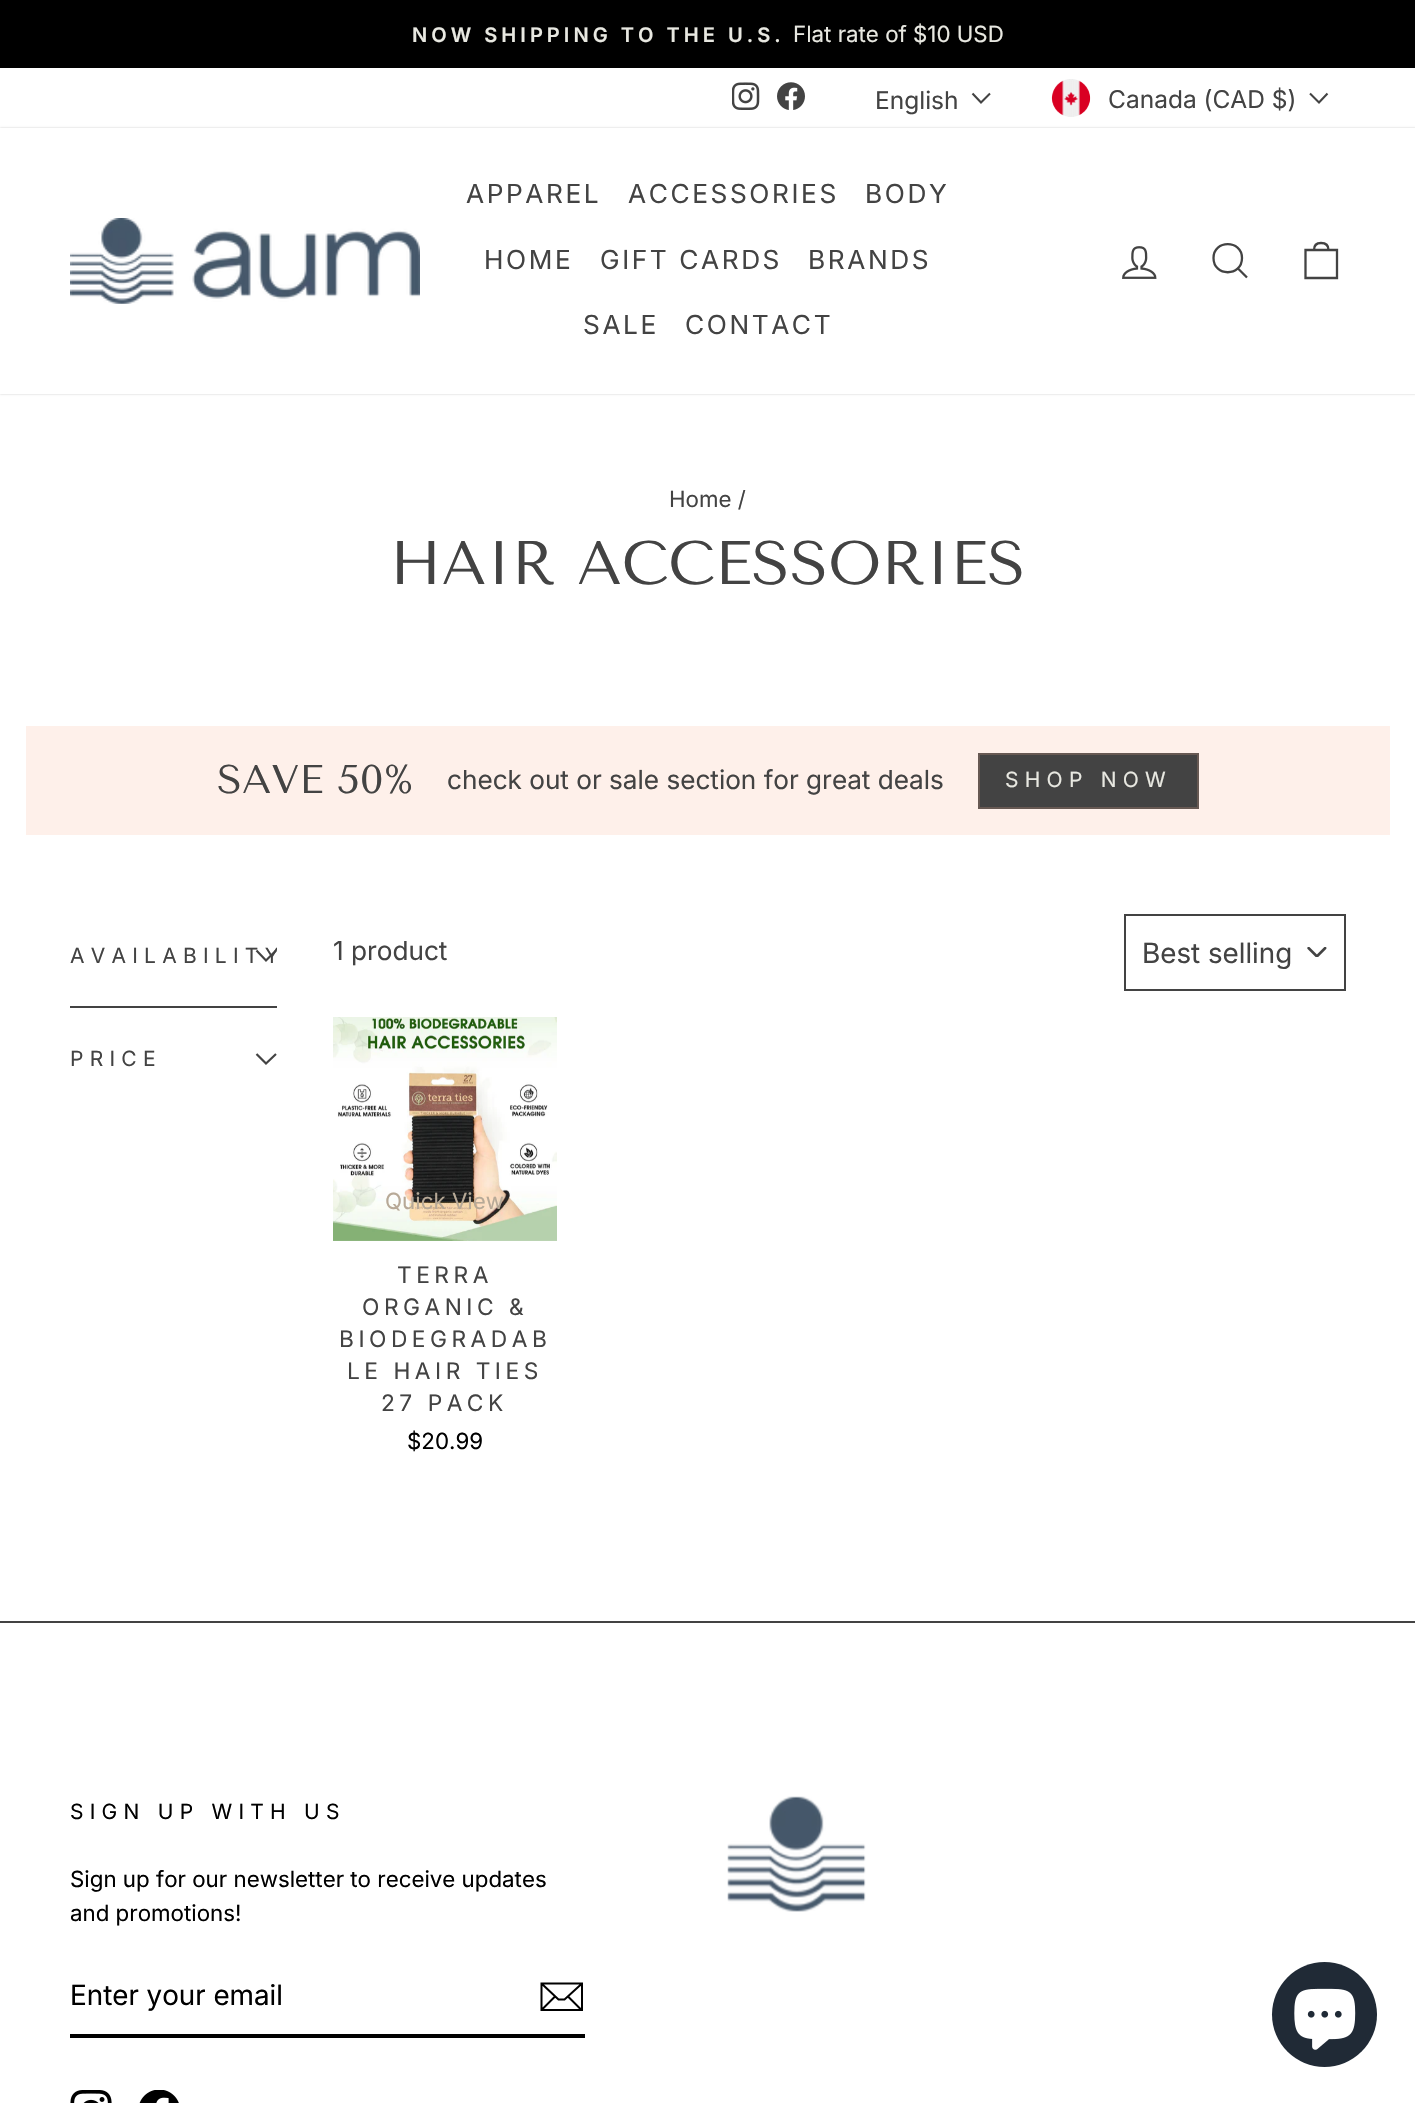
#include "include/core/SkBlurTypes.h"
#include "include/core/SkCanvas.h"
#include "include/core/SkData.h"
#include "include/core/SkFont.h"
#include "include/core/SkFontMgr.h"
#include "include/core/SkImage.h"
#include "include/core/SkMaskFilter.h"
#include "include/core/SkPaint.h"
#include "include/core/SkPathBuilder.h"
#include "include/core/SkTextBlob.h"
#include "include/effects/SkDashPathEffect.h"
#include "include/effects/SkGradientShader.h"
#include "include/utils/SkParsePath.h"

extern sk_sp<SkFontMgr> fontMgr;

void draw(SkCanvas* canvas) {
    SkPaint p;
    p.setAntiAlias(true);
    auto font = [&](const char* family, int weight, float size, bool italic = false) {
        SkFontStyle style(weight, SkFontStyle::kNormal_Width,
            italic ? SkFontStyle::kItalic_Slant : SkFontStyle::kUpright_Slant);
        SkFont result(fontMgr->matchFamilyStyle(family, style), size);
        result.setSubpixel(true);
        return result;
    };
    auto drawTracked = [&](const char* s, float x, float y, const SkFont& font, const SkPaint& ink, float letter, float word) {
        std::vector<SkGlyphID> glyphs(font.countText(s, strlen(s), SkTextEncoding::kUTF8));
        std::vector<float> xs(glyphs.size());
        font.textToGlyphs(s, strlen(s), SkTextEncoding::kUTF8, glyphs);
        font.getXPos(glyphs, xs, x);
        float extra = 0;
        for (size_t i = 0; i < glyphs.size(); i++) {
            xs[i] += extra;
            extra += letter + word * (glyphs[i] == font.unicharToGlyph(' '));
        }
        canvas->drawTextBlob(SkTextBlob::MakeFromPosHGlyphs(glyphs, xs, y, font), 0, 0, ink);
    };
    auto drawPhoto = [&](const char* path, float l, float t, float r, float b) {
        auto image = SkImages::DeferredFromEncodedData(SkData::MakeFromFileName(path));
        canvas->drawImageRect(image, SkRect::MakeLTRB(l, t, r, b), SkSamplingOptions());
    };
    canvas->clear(0xFFFFFFFF);
    p.setColor(0xFF000000);
    canvas->drawRect(SkRect::MakeLTRB(0, 0, 1415, 68), p);
    auto font1 = font("Inter", 600, 20.1f);
    p.setColor(0xFFE8E8E1);
    drawTracked("NOW SHIPPING TO THE U.S.", 412, 42, font1, p, 4, 0);
    auto font2 = font("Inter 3", 400, 22.3f);
    canvas->drawString("Flat rate of $10 USD", 793, 42, font2, p);
    drawPhoto("media/1.png", 732, 82, 760, 110);
    drawPhoto("media/2.png", 777, 82, 805, 110);
    auto font3 = font("Inter 3", 400, 24.5f);
    p.setColor(0xFF434343);
    canvas->drawString("English", 875, 109, font3, p);
    p.setStyle(SkPaint::kStroke_Style);
    p.setStrokeWidth(2.1f);
    canvas->drawPath(SkPathBuilder().moveTo(972.5f, 93.5f).lineTo(981, 102.5f).lineTo(990, 93.5f).detach(), p);
    drawPhoto("media/3.png", 1051, 79, 1091, 117);
    p.setStyle(SkPaint::kFill_Style);
    canvas->drawString("Canada (CAD $)", 1108, 108, font3, p);
    p.setStyle(SkPaint::kStroke_Style);
    canvas->drawPath(SkPathBuilder().moveTo(1310, 93.5f).lineTo(1319, 102.5f).lineTo(1327.5f, 93.5f).detach(), p);
    p.setStyle(SkPaint::kFill_Style);
    p.setColor(0x33000000);
    p.setMaskFilter(SkMaskFilter::MakeBlur(kNormal_SkBlurStyle, 1));
    canvas->drawRect(SkRect::MakeLTRB(0, 128, 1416, 394), p);
    p.setMaskFilter(nullptr);
    p.setColor(0xFFFFFFFF);
    canvas->drawRect(SkRect::MakeLTRB(0, 128, 1415, 394), p);
    drawPhoto("media/4.png", 70, 218, 420, 304);
    auto font4 = font("Inter", 400, 26.25f);
    p.setColor(0xFF434343);
    {
        const struct { const char* s; float x, y; } items[] = {
            {"APPAREL", 466, 203},
            {"ACCESSORIES", 628, 203},
            {"BODY", 865, 203},
            {"HOME", 484, 269},
            {"GIFT CARDS", 600, 269},
            {"BRANDS", 808, 269},
            {"SALE", 583, 334},
            {"CONTACT", 685, 334},
        };
        for (auto [s, x, y] : items) {
            drawTracked(s, x, y, font4, p, 2.6f, 0);
        }
    }
    drawPhoto("media/5.png", 1122, 246, 1157, 279);
    p.setStyle(SkPaint::kStroke_Style);
    p.setStrokeWidth(2.3f);
    canvas->drawPath(SkPathBuilder().moveTo(1242, 258).cubicTo(1242, 277, 1213.5f, 277, 1213.5f, 258).cubicTo(1213.5f, 239.5f, 1242, 239.5f, 1242, 258).close().moveTo(1247, 277.5f).lineTo(1238, 268.5f).detach(), p);
    canvas->drawPath(SkPathBuilder().moveTo(1305.5f, 250).lineTo(1337, 250).lineTo(1337, 278).lineTo(1305.5f, 278).close().moveTo(1314, 250).cubicTo(1314, 244.5f, 1317, 243, 1321, 243).cubicTo(1325.5f, 243, 1328.5f, 244.5f, 1328.5f, 250).detach(), p);
    p.setStyle(SkPaint::kFill_Style);
    canvas->drawString("Home /", 669, 507, font2, p);
    auto font5 = font("Tenor Sans", 400, 61.25f);
    canvas->drawString("HAIR ACCESSORIES", 390, 584, font5, p);
    p.setColor(0xFFFEF0EA);
    canvas->drawRect(SkRect::MakeLTRB(26, 726, 1390, 835), p);
    auto font6 = font("Tenor Sans", 400, 40);
    p.setColor(0xFF434343);
    canvas->drawString("SAVE 50%", 217, 793, font6, p);
    canvas->drawString("check out or sale section for great deals", 447, 789, font4, p);
    canvas->drawRect(SkRect::MakeLTRB(979, 754, 1198, 808), p);
    p.setStyle(SkPaint::kStroke_Style);
    p.setStrokeWidth(2);
    p.setColor(0xFF675953);
    canvas->drawRect(SkRect::MakeLTRB(979, 754, 1198, 808), p);
    auto font7 = font("Inter 3", 400, 21);
    p.setStyle(SkPaint::kFill_Style);
    p.setColor(0xFFE8E8E1);
    drawTracked("SHOP NOW", 1005, 787, font7, p, 6.25f, 0);
    canvas->save();
    canvas->clipRect(SkRect::MakeLTRB(70, 914, 277, 998));
    p.setColor(0xFF434343);
    drawTracked("AVAILABILITY", 70, 963, font7, p, 6.25f, 0);
    canvas->restore();
    p.setStyle(SkPaint::kStroke_Style);
    p.setStrokeWidth(2.2f);
    canvas->drawPath(SkPathBuilder().moveTo(256.5f, 950.5f).lineTo(266, 960.5f).lineTo(276, 950.5f).detach(), p);
    p.setStyle(SkPaint::kFill_Style);
    canvas->drawRect(SkRect::MakeLTRB(70, 1006, 277, 1008), p);
    drawTracked("PRICE", 70, 1066, font7, p, 6.25f, 0);
    p.setStyle(SkPaint::kStroke_Style);
    canvas->drawPath(SkPathBuilder().moveTo(256.5f, 1054).lineTo(266, 1063.5f).lineTo(276, 1054).detach(), p);
    p.setStyle(SkPaint::kFill_Style);
    canvas->drawString("1 product", 333, 960, font4, p);
    drawPhoto("media/6.png", 1307, 947, 1327, 957);
    p.setStyle(SkPaint::kStroke_Style);
    p.setStrokeWidth(2);
    canvas->drawRect(SkRect::MakeLTRB(1125, 915, 1345, 990), p);
    auto font8 = font("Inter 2", 400, 28);
    p.setStyle(SkPaint::kFill_Style);
    canvas->drawString("Best selling", 1142, 963, font8, p);
    drawPhoto("media/7.png", 333, 1017, 557, 1241);
    p.setColor(0xFFB7A997);
    canvas->drawString("Quick View", 385, 1209, font2, p);
    auto font9 = font("Inter 3", 400, 22.75f);
    p.setColor(0xFF434343);
    {
        const struct { const char* s; float x, y; } items[] = {
            {"TERRA", 397, 1283},
            {"ORGANIC &", 362, 1315},
            {"BIODEGRADAB", 339, 1347},
            {"LE HAIR TIES", 347, 1379},
            {"27 PACK", 381, 1411},
        };
        for (auto [s, x, y] : items) {
            drawTracked(s, x, y, font9, p, 4.5f, 0);
        }
    }
    p.setColor(0xFF000000);
    canvas->drawString("$20.99", 407, 1449, font2, p);
    p.setColor(0xFF434343);
    canvas->drawRect(SkRect::MakeLTRB(0, 1621, 1415, 1623), p);
    p.setColor(0xFF000000);
    drawTracked("SIGN UP WITH US", 70, 1819, font7, p, 6.25f, 0);
    canvas->drawString("Sign up for our newsletter to receive updates", 70, 1887, font2, p);
    canvas->drawString("and promotions!", 70, 1921, font2, p);
    canvas->drawRect(SkRect::MakeLTRB(70, 2034, 585, 2038), p);
    canvas->drawString("Enter your email", 70, 2005, font8, p);
    p.setStyle(SkPaint::kStroke_Style);
    canvas->drawPath(SkPathBuilder().moveTo(582, 2010).lineTo(541.5f, 2010).lineTo(541.5f, 1983.5f).lineTo(582, 1983.5f).close().moveTo(541.5f, 1983.5f).lineTo(558.5f, 1999.5f).lineTo(564.5f, 1999.5f).lineTo(582, 1983.5f).moveTo(555, 1996.5f).lineTo(542, 2009.5f).moveTo(581.5f, 2010).lineTo(568, 1996.5f).detach(), p);
    drawPhoto("media/8.png", 70, 2090, 112, 2103);
    drawPhoto("media/9.png", 139, 2090, 179, 2103);
    drawPhoto("media/10.png", 727, 1796, 866, 1912);
    p.setStyle(SkPaint::kFill_Style);
    p.setColor(0xFF202A36);
    canvas->drawCircle(1324.5f, 2014.5f, 52.5f, p);
    drawPhoto("media/11.png", 1294, 1988, 1356, 2050);
}
